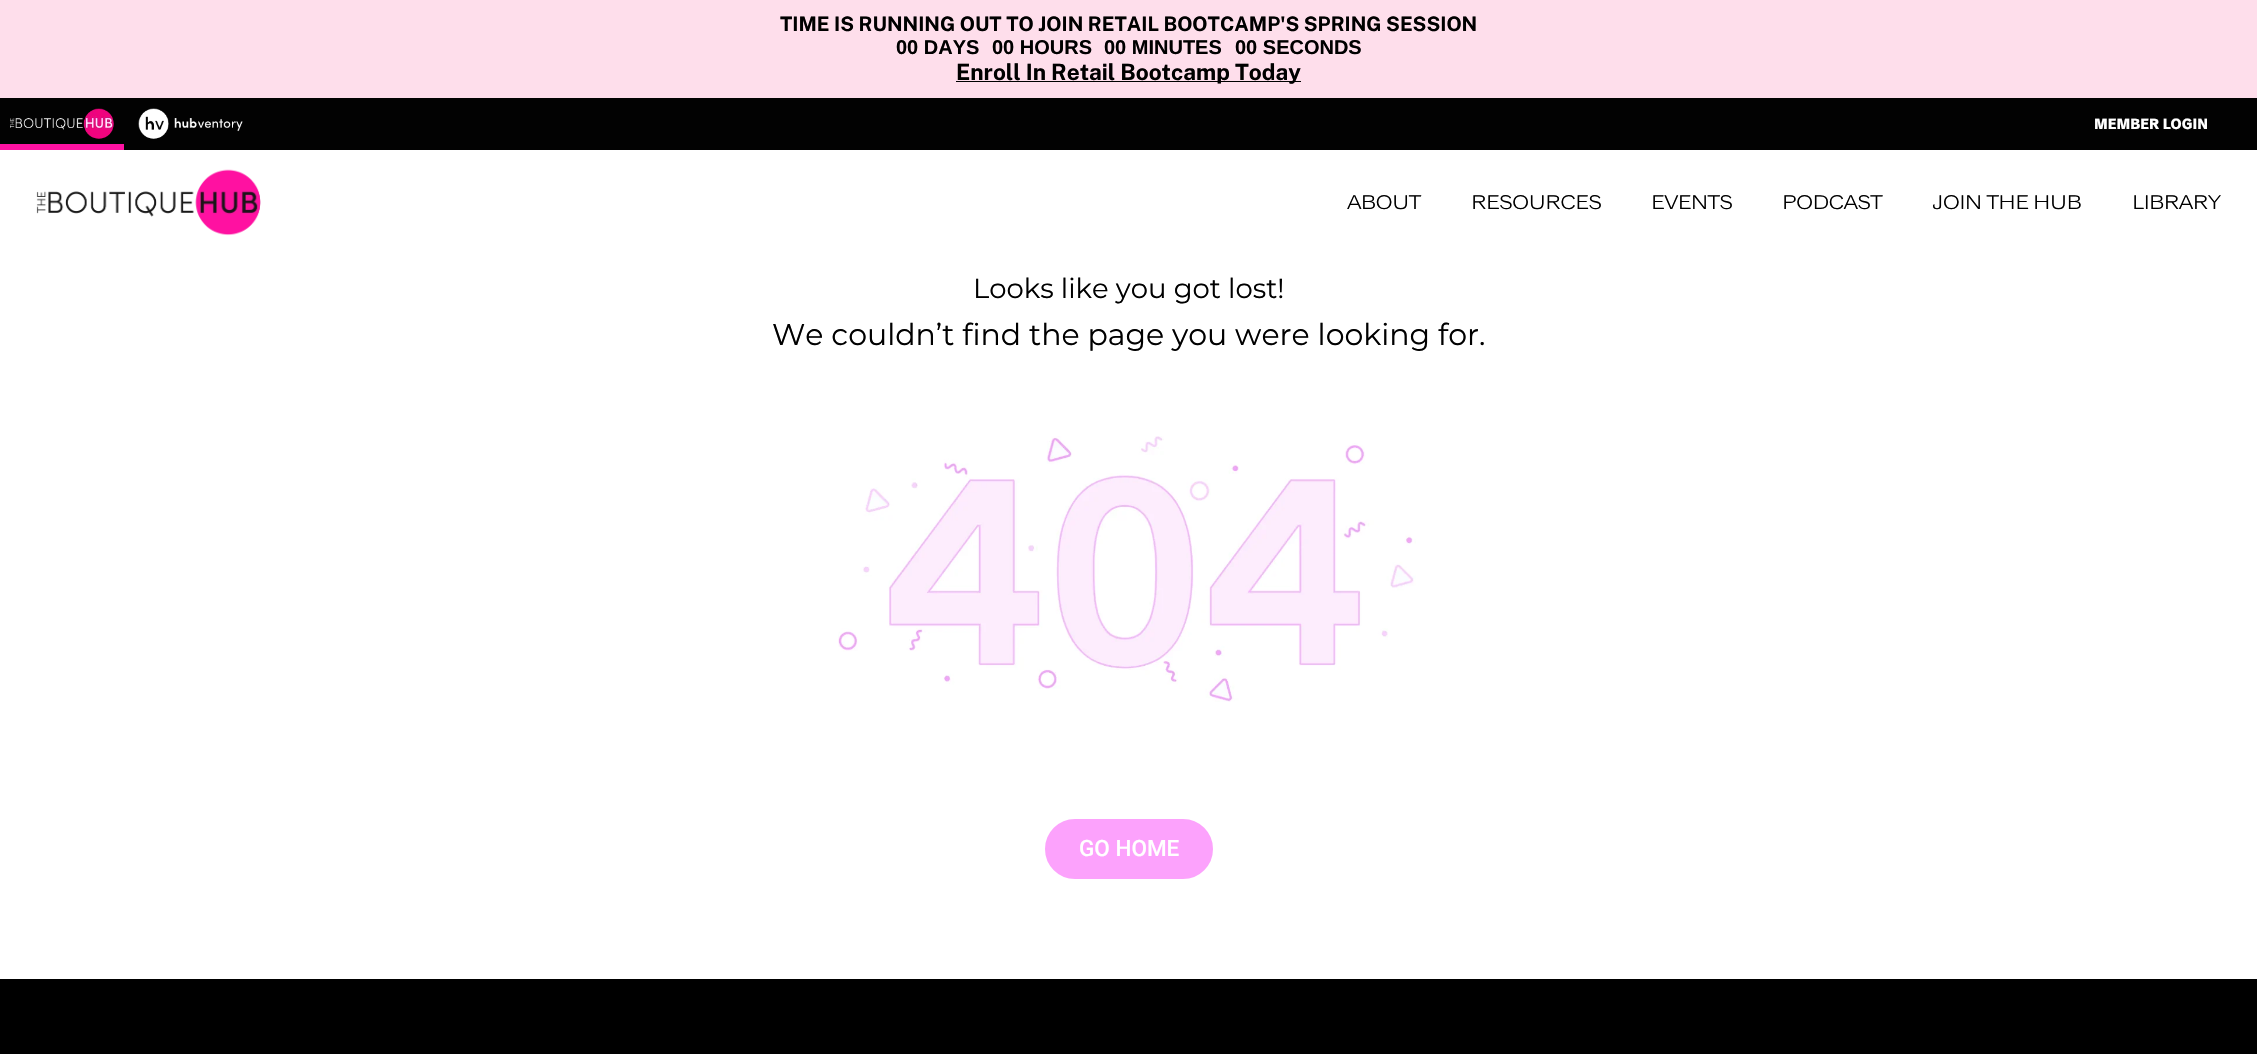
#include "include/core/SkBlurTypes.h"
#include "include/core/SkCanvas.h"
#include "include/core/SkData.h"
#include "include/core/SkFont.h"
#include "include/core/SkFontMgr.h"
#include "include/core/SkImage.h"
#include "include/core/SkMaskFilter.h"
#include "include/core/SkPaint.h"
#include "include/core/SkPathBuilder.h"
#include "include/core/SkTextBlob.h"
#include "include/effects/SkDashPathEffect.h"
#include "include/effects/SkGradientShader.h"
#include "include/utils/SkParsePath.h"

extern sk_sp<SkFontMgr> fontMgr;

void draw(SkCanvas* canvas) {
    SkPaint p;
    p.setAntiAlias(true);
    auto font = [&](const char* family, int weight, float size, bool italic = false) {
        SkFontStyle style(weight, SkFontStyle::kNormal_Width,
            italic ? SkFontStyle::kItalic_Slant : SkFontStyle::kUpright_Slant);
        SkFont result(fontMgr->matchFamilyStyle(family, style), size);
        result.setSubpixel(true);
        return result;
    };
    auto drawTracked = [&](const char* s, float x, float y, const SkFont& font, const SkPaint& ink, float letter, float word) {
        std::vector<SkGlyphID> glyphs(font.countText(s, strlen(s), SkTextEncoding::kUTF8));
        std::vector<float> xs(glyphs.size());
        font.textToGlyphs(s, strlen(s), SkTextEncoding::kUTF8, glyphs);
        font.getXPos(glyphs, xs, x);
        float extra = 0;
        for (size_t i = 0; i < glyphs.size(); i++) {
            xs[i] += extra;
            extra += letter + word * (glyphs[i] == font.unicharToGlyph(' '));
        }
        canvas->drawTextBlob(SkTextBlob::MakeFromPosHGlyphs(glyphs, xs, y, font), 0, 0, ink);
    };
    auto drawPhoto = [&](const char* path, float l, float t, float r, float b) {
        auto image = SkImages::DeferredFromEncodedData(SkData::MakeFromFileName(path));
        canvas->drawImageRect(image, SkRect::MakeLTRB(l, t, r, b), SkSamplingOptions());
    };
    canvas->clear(0xFFFFFFFF);
    p.setColor(0xFFFEDEEB);
    canvas->drawRect(SkRect::MakeLTRB(0, 0, 2257, 98), p);
    auto font1 = font("Public Sans", 700, 20);
    p.setColor(0xFF000000);
    canvas->drawString("TIME IS RUNNING OUT TO JOIN RETAIL BOOTCAMP'S SPRING SESSION", 780, 31, font1, p);
    auto font2 = font("Liberation Sans", 700, 20);
    {
        const struct { const char* s; float x, y; } items[] = {
            {"00 DAYS", 896, 54},
            {"00 HOURS", 992, 54},
            {"00 MINUTES", 1104, 54},
            {"00 SECONDS", 1235, 54},
        };
        for (auto [s, x, y] : items) {
            canvas->drawString(s, x, y, font2, p);
        }
    }
    canvas->drawRect(SkRect::MakeLTRB(956, 81, 1301, 82), p);
    auto font3 = font("Public Sans", 700, 22.5f);
    canvas->drawString("Enroll In Retail Bootcamp Today", 956, 80, font3, p);
    p.setColor(0xFF020202);
    canvas->drawRect(SkRect::MakeLTRB(0, 98, 2257, 150), p);
    p.setColor(0xFFFF12A2);
    canvas->drawRect(SkRect::MakeLTRB(0, 144, 124, 150), p);
    drawPhoto("media/1.png", 10, 108, 114, 139);
    drawPhoto("media/2.png", 138, 108, 243, 139);
    auto font4 = font("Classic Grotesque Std", 700, 15);
    p.setColor(0xFFFFFFFF);
    canvas->drawString("MEMBER LOGIN", 2094, 129, font4, p);
    drawPhoto("media/3.png", 36, 169, 261, 236);
    auto font5 = font("Classic Grotesque Std", 300, 20);
    p.setColor(0xFF000000);
    {
        const struct { const char* s; float x, y; } items[] = {
            {"ABOUT", 1347, 209},
            {"RESOURCES", 1471, 209},
            {"EVENTS", 1651, 209},
            {"PODCAST", 1782, 209},
            {"JOIN THE HUB", 1932, 209},
            {"LIBRARY", 2132, 209},
        };
        for (auto [s, x, y] : items) {
            drawTracked(s, x, y, font5, p, -0.75f, 0);
        }
    }
    auto font6 = font("Montserrat", 400, 27.5f);
    canvas->drawString("Looks like you got lost!", 973, 298, font6, p);
    auto font7 = font("Montserrat", 400, 30);
    canvas->drawString("We couldn’t find the page you were looking for.", 772, 345, font7, p);
    drawPhoto("media/4.png", 838, 436, 1416, 702);
    p.setColor(0xFFFCA2FC);
    canvas->drawRoundRect(SkRect::MakeLTRB(1047, 821, 1211, 877), 28, 28, p);
    p.setStyle(SkPaint::kStroke_Style);
    p.setStrokeWidth(4);
    canvas->drawRoundRect(SkRect::MakeLTRB(1047, 821, 1211, 877), 28, 28, p);
    auto font8 = font("Roboto", 500, 22.5f);
    p.setStyle(SkPaint::kFill_Style);
    p.setColor(0xFFFFFFFF);
    canvas->drawString("GO HOME", 1079, 856, font8, p);
    p.setColor(0xFF000000);
    canvas->drawRect(SkRect::MakeLTRB(0, 979, 2257, 1054), p);
}
